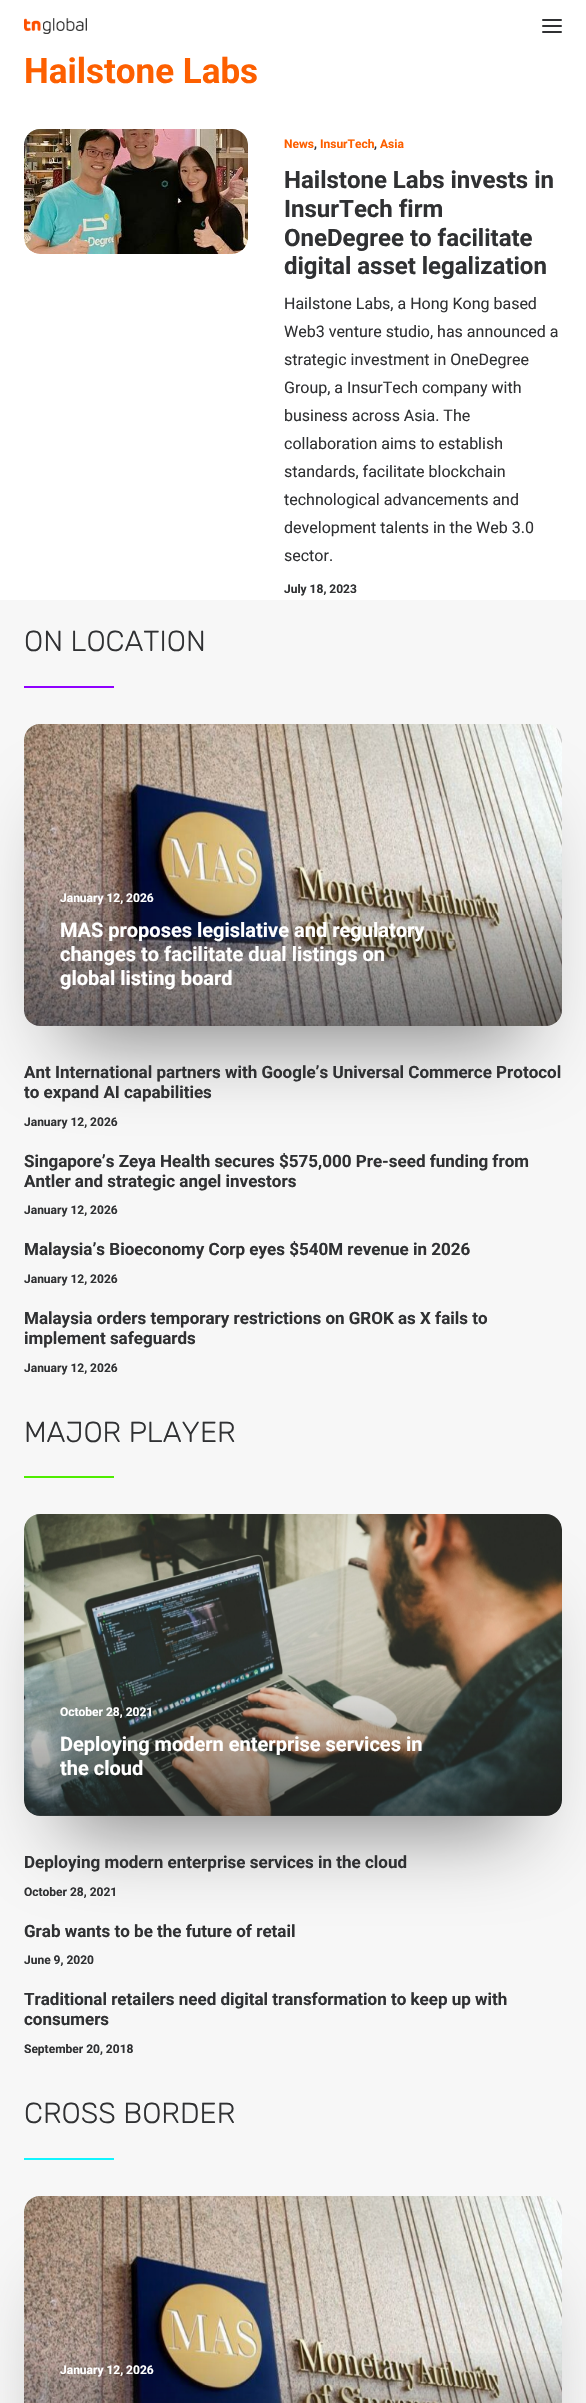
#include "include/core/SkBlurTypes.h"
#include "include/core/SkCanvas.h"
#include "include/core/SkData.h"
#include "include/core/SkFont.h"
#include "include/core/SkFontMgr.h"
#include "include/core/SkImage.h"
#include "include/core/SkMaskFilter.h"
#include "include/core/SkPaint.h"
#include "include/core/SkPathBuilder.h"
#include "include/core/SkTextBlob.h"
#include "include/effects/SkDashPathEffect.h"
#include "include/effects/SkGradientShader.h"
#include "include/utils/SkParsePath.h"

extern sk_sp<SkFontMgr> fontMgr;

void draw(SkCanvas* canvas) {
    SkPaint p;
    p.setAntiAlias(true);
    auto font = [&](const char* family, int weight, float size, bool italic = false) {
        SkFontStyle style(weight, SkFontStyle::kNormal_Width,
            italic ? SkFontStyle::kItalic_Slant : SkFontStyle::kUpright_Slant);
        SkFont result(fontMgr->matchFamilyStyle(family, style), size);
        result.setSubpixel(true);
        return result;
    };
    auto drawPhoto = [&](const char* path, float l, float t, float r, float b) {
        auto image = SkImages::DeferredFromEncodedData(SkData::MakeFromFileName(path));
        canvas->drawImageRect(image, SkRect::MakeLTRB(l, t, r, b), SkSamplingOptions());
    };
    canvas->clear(0xFFFFFFFF);
    drawPhoto("media/1.png", 24, 18, 87, 34);
    p.setColor(0xFF303133);
    canvas->drawRoundRect(SkRect::MakeLTRB(542, 25, 562, 27), 1, 1, p);
    canvas->drawRoundRect(SkRect::MakeLTRB(542, 19, 562, 21), 1, 1, p);
    canvas->drawRoundRect(SkRect::MakeLTRB(542, 31, 562, 33), 1, 1, p);
    auto font1 = font("Roboto", 700, 35);
    p.setColor(0xFFFD5F00);
    canvas->drawString("Hailstone Labs", 24, 83, font1, p);
    drawPhoto("media/2.png", 24, 129, 248, 254);
    auto font2 = font("Roboto", 700, 12);
    canvas->drawString("News", 284, 148, font2, p);
    p.setColor(0xFF303133);
    canvas->drawString(",", 314, 148, font2, p);
    p.setColor(0xFFFD5F00);
    canvas->drawString("InsurTech", 320, 148, font2, p);
    p.setColor(0xFF303133);
    canvas->drawString(",", 374, 148, font2, p);
    p.setColor(0xFFFD5F00);
    canvas->drawString("Asia", 380, 148, font2, p);
    auto font3 = font("Roboto", 700, 24);
    p.setColor(0xFF303133);
    {
        const struct { const char* s; float x, y; } items[] = {
            {"Hailstone Labs invests in", 284, 188},
            {"InsurTech firm", 284, 217},
            {"OneDegree to facilitate", 284, 246},
            {"digital asset legalization", 284, 274},
        };
        for (auto [s, x, y] : items) {
            canvas->drawString(s, x, y, font3, p);
        }
    }
    auto font4 = font("Roboto", 400, 16);
    {
        const struct { const char* s; float x, y; } items[] = {
            {"Hailstone Labs, a Hong Kong based", 284, 309},
            {"Web3 venture studio, has announced a", 284, 337},
            {"strategic investment in OneDegree", 284, 365},
            {"Group, a InsurTech company with", 284, 393},
            {"business across Asia. The", 284, 421},
            {"collaboration aims to establish", 284, 449},
            {"standards, facilitate blockchain", 284, 477},
            {"technological advancements and", 284, 505},
            {"development talents in the Web 3.0", 284, 533},
            {"sector.", 284, 561},
        };
        for (auto [s, x, y] : items) {
            canvas->drawString(s, x, y, font4, p);
        }
    }
    canvas->drawString("July 18, 2023", 284, 593, font2, p);
    p.setColor(0xFFF7F7F7);
    canvas->drawRect(SkRect::MakeLTRB(0, 600, 586, 2403), p);
    auto font5 = font("Rubik", 300, 29);
    p.setColor(0xFF303133);
    canvas->drawString("ON LOCATION", 24, 651, font5, p);
    p.setColor(0xFF8F00FF);
    canvas->drawRect(SkRect::MakeLTRB(24, 686, 114, 688), p);
    p.setColor(0x73000000);
    p.setMaskFilter(SkMaskFilter::MakeBlur(kNormal_SkBlurStyle, 40));
    canvas->drawRect(SkRect::MakeLTRB(64, 819, 522, 1041), p);
    p.setMaskFilter(nullptr);
    drawPhoto("media/3.png", 24, 724, 562, 1026);
    {
        const SkColor colors[] = {0x80141618, 0x00141618};
        const float stops[] = {0, 0.5f};
        const SkPoint ends[] = {{293, 1026}, {293, 723}};
        p.setShader(SkGradientShader::MakeLinear(ends, colors, stops, 2, SkTileMode::kClamp));
        p.setAlpha(255);
    }
    canvas->drawRoundRect(SkRect::MakeLTRB(24, 724, 562, 1026), 16, 16, p);
    p.setShader(nullptr);
    p.setColor(0xFFFFFFFF);
    canvas->drawString("January 12, 2026", 60, 902, font2, p);
    auto font6 = font("Roboto", 700, 20);
    {
        const struct { const char* s; float x, y; } items[] = {
            {"MAS proposes legislative and regulatory", 60, 937},
            {"changes to facilitate dual listings on", 60, 961},
            {"global listing board", 60, 985},
        };
        for (auto [s, x, y] : items) {
            canvas->drawString(s, x, y, font6, p);
        }
    }
    auto font7 = font("Roboto", 700, 17);
    p.setColor(0xFF303133);
    canvas->drawString("Ant International partners with Google’s Universal Commerce Protocol", 24, 1078, font7, p);
    canvas->drawString("to expand AI capabilities", 24, 1098, font7, p);
    canvas->drawString("January 12, 2026", 24, 1126, font2, p);
    canvas->drawString("Singapore’s Zeya Health secures $575,000 Pre-seed funding from", 24, 1167, font7, p);
    canvas->drawString("Antler and strategic angel investors", 24, 1187, font7, p);
    canvas->drawString("January 12, 2026", 24, 1214, font2, p);
    canvas->drawString("Malaysia’s Bioeconomy Corp eyes $540M revenue in 2026", 24, 1255, font7, p);
    canvas->drawString("January 12, 2026", 24, 1283, font2, p);
    canvas->drawString("Malaysia orders temporary restrictions on GROK as X fails to", 24, 1324, font7, p);
    canvas->drawString("implement safeguards", 24, 1344, font7, p);
    canvas->drawString("January 12, 2026", 24, 1372, font2, p);
    canvas->drawString("MAJOR PLAYER", 24, 1442, font5, p);
    p.setColor(0xFF4FED00);
    canvas->drawRect(SkRect::MakeLTRB(24, 1476, 114, 1478), p);
    p.setColor(0x73000000);
    p.setMaskFilter(SkMaskFilter::MakeBlur(kNormal_SkBlurStyle, 40));
    canvas->drawRect(SkRect::MakeLTRB(64, 1609, 522, 1831), p);
    p.setMaskFilter(nullptr);
    drawPhoto("media/4.png", 24, 1514, 562, 1816);
    {
        const SkColor colors[] = {0x80141618, 0x00141618};
        const float stops[] = {0, 0.5f};
        const SkPoint ends[] = {{293, 1816}, {293, 1513}};
        p.setShader(SkGradientShader::MakeLinear(ends, colors, stops, 2, SkTileMode::kClamp));
        p.setAlpha(255);
    }
    canvas->drawRoundRect(SkRect::MakeLTRB(24, 1514, 562, 1816), 16, 16, p);
    p.setShader(nullptr);
    p.setColor(0xFFFFFFFF);
    canvas->drawString("October 28, 2021", 60, 1716, font2, p);
    canvas->drawString("Deploying modern enterprise services in", 60, 1751, font6, p);
    canvas->drawString("the cloud", 60, 1775, font6, p);
    p.setColor(0xFF303133);
    canvas->drawString("Deploying modern enterprise services in the cloud", 24, 1868, font7, p);
    canvas->drawString("October 28, 2021", 24, 1896, font2, p);
    canvas->drawString("Grab wants to be the future of retail", 24, 1937, font7, p);
    canvas->drawString("June 9, 2020", 24, 1964, font2, p);
    canvas->drawString("Traditional retailers need digital transformation to keep up with", 24, 2005, font7, p);
    canvas->drawString("consumers", 24, 2025, font7, p);
    canvas->drawString("September 20, 2018", 24, 2053, font2, p);
    canvas->drawString("CROSS BORDER", 24, 2123, font5, p);
    p.setColor(0xFF11F5FF);
    canvas->drawRect(SkRect::MakeLTRB(24, 2158, 114, 2160), p);
    p.setColor(0x73000000);
    p.setMaskFilter(SkMaskFilter::MakeBlur(kNormal_SkBlurStyle, 40));
    canvas->drawRect(SkRect::MakeLTRB(64, 2291, 522, 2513), p);
    p.setMaskFilter(nullptr);
    drawPhoto("media/5.png", 24, 2196, 562, 2403);
    {
        const SkColor colors[] = {0x80141618, 0x00141618};
        const float stops[] = {0, 0.5f};
        const SkPoint ends[] = {{293, 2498}, {293, 2195}};
        p.setShader(SkGradientShader::MakeLinear(ends, colors, stops, 2, SkTileMode::kClamp));
        p.setAlpha(255);
    }
    canvas->drawRect(SkRect::MakeLTRB(24, 2353, 562, 2403), p);
    p.setShader(nullptr);
    p.setColor(0xFFFFFFFF);
    canvas->drawString("January 12, 2026", 60, 2374, font2, p);
}
